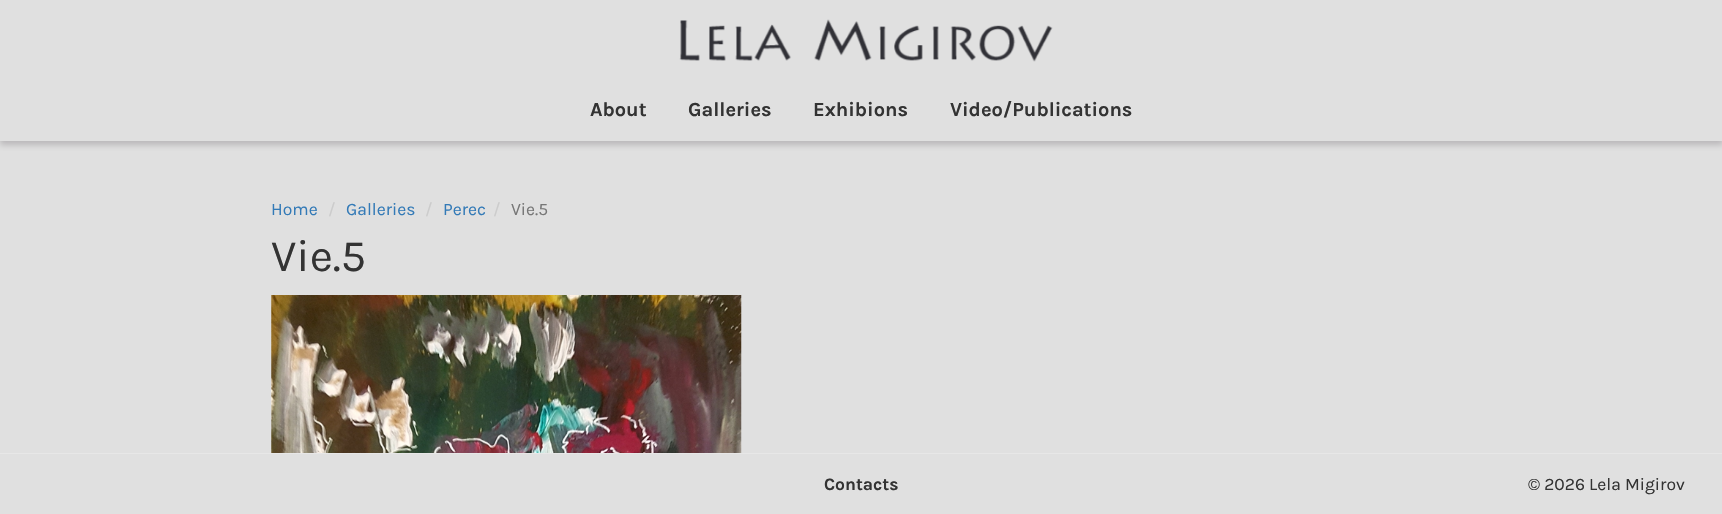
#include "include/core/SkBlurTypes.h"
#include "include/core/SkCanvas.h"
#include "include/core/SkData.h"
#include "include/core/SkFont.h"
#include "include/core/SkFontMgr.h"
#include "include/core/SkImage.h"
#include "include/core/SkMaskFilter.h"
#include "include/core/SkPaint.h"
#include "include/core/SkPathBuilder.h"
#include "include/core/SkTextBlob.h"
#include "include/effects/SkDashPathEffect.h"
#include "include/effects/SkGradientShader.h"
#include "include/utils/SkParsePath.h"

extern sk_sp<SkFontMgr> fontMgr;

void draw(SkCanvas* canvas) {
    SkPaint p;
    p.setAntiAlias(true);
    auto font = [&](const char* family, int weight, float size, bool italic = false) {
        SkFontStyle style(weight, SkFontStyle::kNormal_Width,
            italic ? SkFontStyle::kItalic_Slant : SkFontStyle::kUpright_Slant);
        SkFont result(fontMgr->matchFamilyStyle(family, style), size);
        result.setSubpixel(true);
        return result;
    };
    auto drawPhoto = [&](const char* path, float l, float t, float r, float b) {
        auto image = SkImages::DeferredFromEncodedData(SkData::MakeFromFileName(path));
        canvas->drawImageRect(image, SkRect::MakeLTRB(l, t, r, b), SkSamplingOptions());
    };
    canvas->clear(0xFFE0E0E0);
    canvas->save();
    canvas->clipRect(SkRect::MakeLTRB(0, 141, 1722, 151));
    p.setColor(0xFFBAB8BA);
    p.setMaskFilter(SkMaskFilter::MakeBlur(kNormal_SkBlurStyle, 3));
    canvas->drawRect(SkRect::MakeLTRB(0, 4, 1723, 145), p);
    p.setMaskFilter(nullptr);
    canvas->restore();
    drawPhoto("media/1.png", 679, 19, 1053, 62);
    auto font1 = font("Karla", 700, 20);
    p.setColor(0xFF333333);
    {
        const struct { const char* s; float x, y; } items[] = {
            {"About", 590, 116},
            {"Galleries", 688, 116},
            {"Exhibions", 813, 116},
            {"Video/Publications", 950, 116},
        };
        for (auto [s, x, y] : items) {
            canvas->drawString(s, x, y, font1, p);
        }
    }
    auto font2 = font("Karla", 400, 17.5f);
    p.setColor(0xFF337AB7);
    canvas->drawString("Home", 271, 215, font2, p);
    p.setColor(0xFFCCCCCC);
    canvas->drawString("/", 328, 215, font2, p);
    p.setColor(0xFF337AB7);
    canvas->drawString("Galleries", 346, 215, font2, p);
    p.setColor(0xFFCCCCCC);
    canvas->drawString("/", 425, 215, font2, p);
    p.setColor(0xFF337AB7);
    canvas->drawString("Perec", 443, 215, font2, p);
    p.setColor(0xFFCCCCCC);
    canvas->drawString("/", 493, 215, font2, p);
    p.setColor(0xFF777777);
    canvas->drawString("Vie.5", 511, 215, font2, p);
    auto font3 = font("Karla", 400, 45);
    p.setColor(0xFF333333);
    canvas->drawString("Vie.5", 271, 271, font3, p);
    drawPhoto("media/2.png", 271, 295, 742, 453);
    p.setColor(0xFFE7E7E7);
    canvas->drawRect(SkRect::MakeLTRB(0, 453, 1722, 454), p);
    auto font4 = font("Karla", 700, 17.5f);
    p.setColor(0xFF333333);
    canvas->drawString("Contacts", 824, 490, font4, p);
    canvas->drawString("© 2026 Lela Migirov", 1528, 490, font2, p);
}
